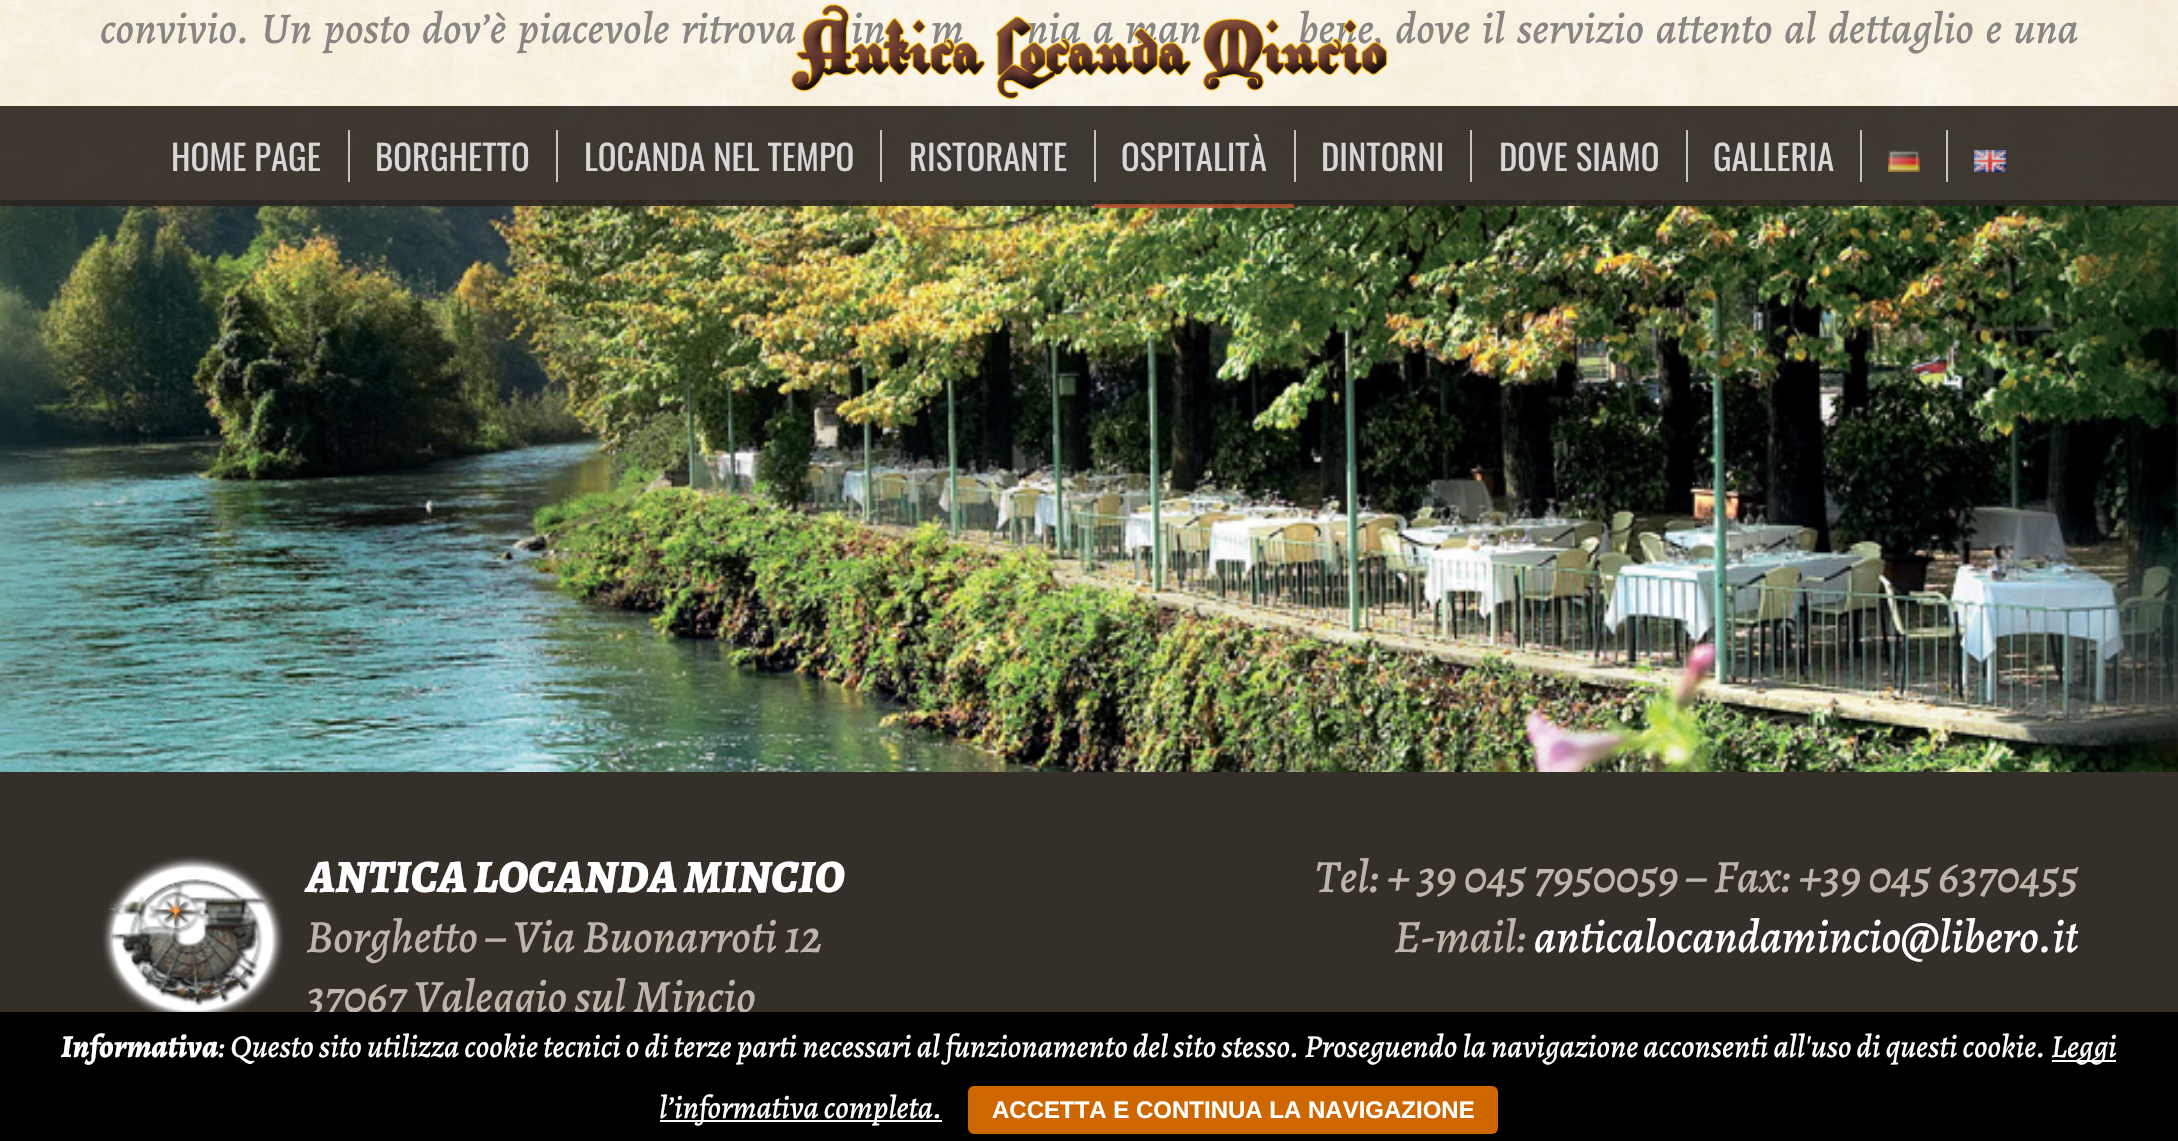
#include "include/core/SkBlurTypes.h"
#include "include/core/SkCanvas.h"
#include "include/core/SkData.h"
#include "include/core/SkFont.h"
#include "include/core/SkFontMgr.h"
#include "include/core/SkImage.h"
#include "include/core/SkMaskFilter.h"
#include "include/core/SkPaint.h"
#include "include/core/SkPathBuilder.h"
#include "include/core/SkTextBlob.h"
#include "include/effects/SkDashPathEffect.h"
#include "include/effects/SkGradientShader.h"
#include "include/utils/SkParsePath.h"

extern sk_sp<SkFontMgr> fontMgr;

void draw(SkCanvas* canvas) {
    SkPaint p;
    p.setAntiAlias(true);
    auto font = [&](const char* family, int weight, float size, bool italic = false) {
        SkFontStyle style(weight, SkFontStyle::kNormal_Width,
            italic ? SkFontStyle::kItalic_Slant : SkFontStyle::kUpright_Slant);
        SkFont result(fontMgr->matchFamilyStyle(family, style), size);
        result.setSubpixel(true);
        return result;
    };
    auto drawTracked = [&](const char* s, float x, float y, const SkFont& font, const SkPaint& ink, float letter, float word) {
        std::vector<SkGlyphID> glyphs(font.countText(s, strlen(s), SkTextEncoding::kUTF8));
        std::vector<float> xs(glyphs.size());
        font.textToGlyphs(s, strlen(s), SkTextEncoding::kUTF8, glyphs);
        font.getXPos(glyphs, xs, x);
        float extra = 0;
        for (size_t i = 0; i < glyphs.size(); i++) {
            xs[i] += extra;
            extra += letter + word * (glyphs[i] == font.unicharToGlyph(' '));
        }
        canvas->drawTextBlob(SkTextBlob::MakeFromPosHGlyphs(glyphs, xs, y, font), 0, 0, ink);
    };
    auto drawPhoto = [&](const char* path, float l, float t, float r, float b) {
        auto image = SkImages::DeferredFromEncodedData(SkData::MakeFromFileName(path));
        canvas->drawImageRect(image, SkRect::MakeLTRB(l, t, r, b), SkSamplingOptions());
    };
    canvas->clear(0xFFFFFFFF);
    drawPhoto("media/1.png", 0, 0, 2178, 200);
    auto font1 = font("Alegreya", 500, 44, true);
    p.setColor(0xFF0F0904);
    {
        const struct { const char* s; float x, y; } items[] = {
            {"convivio. Un posto dov’è piacevole ritrova", 100, 43},
            {"in", 851, 43},
            {"m", 931, 43},
            {"nia a man", 1026, 43},
            {"bene, dove il servizio attento al dettaglio e una", 1298, 43},
        };
        for (auto [s, x, y] : items) {
            drawTracked(s, x, y, font1, p, 0, 4.5f);
        }
    }
    drawPhoto("media/2.png", 0, 200, 2178, 772);
    p.setColor(0xFF342F29);
    canvas->drawRect(SkRect::MakeLTRB(0, 772, 2178, 1012), p);
    drawPhoto("media/3.png", 102, 856, 284, 1012);
    auto font2 = font("Alegreya", 800, 46.4f, true);
    p.setColor(0xFFFFFFFF);
    canvas->drawString("ANTICA LOCANDA MINCIO", 306, 892, font2, p);
    auto font3 = font("Alegreya", 500, 46.4f, true);
    p.setColor(0xFFBDB5AA);
    {
        const struct { const char* s; float x, y; } items[] = {
            {"Borghetto – Via Buonarroti 12", 306, 952},
            {"37067 Valeggio sul Mincio", 306, 1012},
            {"Tel: + 39 045 7950059 – Fax: +39 045 6370455", 1315, 892},
            {"E-mail:", 1394, 952},
        };
        for (auto [s, x, y] : items) {
            canvas->drawString(s, x, y, font3, p);
        }
    }
    canvas->save();
    canvas->clipRect(SkRect::MakeLTRB(1090, 822, 2078, 990));
    p.setColor(0xFFFFFFFF);
    canvas->drawString("anticalocandamincio@libero.it", 1534, 952, font3, p);
    canvas->restore();
    p.setColor(0x80FFFFFF);
    canvas->drawRect(SkRect::MakeLTRB(0, 0, 2178, 206), p);
    drawPhoto("media/4.png", 791, 4, 1388, 99);
    p.setColor(0xCC0F0904);
    canvas->drawRect(SkRect::MakeLTRB(0, 106, 2178, 206), p);
    auto font4 = font("Oswald", 400, 34.75f);
    p.setColor(0xFFD8D7D6);
    canvas->drawString("HOME PAGE", 171, 171, font4, p);
    canvas->drawString("BORGHETTO", 375, 171, font4, p);
    p.setColor(0xFFC8C5BE);
    canvas->drawRect(SkRect::MakeLTRB(348, 130, 350, 182), p);
    p.setColor(0xFFD8D7D6);
    canvas->drawString("LOCANDA NEL TEMPO", 584, 171, font4, p);
    p.setColor(0xFFC8C5BE);
    canvas->drawRect(SkRect::MakeLTRB(556, 130, 558, 182), p);
    p.setColor(0xFFD8D7D6);
    canvas->drawString("RISTORANTE", 909, 171, font4, p);
    p.setColor(0xFFC8C5BF);
    canvas->drawRect(SkRect::MakeLTRB(880, 130, 882, 182), p);
    p.setColor(0xFFD8D7D6);
    canvas->drawString("OSPITALITÀ", 1121, 171, font4, p);
    p.setColor(0xFFC8C5BF);
    canvas->drawRect(SkRect::MakeLTRB(1094, 130, 1096, 182), p);
    p.setColor(0xCCC3512F);
    canvas->drawRect(SkRect::MakeLTRB(1094, 204, 1294, 208), p);
    p.setColor(0xFFD8D7D6);
    canvas->drawString("DINTORNI", 1321, 171, font4, p);
    p.setColor(0xFFC8C5BF);
    canvas->drawRect(SkRect::MakeLTRB(1294, 130, 1296, 182), p);
    p.setColor(0xFFD8D7D6);
    canvas->drawString("DOVE SIAMO", 1499, 171, font4, p);
    p.setColor(0xFFC8C5BF);
    canvas->drawRect(SkRect::MakeLTRB(1470, 130, 1472, 182), p);
    p.setColor(0xFFD8D7D6);
    canvas->drawString("GALLERIA", 1713, 171, font4, p);
    p.setColor(0xFFC8C5BF);
    canvas->drawRect(SkRect::MakeLTRB(1686, 130, 1688, 182), p);
    canvas->drawRect(SkRect::MakeLTRB(1860, 130, 1862, 182), p);
    drawPhoto("media/5.png", 1888, 150, 1920, 172);
    canvas->drawRect(SkRect::MakeLTRB(1946, 130, 1948, 182), p);
    drawPhoto("media/6.png", 1974, 150, 2006, 172);
    p.setColor(0xFF000000);
    canvas->drawRect(SkRect::MakeLTRB(0, 1012, 2178, 1141), p);
    auto font5 = font("Alegreya", 800, 32, true);
    p.setColor(0xFFFFFFFF);
    canvas->drawString("Informativa", 61, 1057, font5, p);
    auto font6 = font("Alegreya", 500, 32, true);
    canvas->drawString(": Questo sito utilizza cookie tecnici o di terze parti necessari al funzionamento del sito stesso. Proseguendo la navigazione acconsenti all'uso di questi cookie.", 218, 1057, font6, p);
    canvas->drawRect(SkRect::MakeLTRB(2052, 1060, 2116, 1062), p);
    canvas->drawString("Leggi", 2051, 1057, font6, p);
    canvas->drawRect(SkRect::MakeLTRB(660, 1120, 942, 1122), p);
    canvas->drawString("l’informativa completa.", 659, 1118, font6, p);
    p.setColor(0xFFCE6700);
    canvas->drawRoundRect(SkRect::MakeLTRB(968, 1086, 1498, 1134), 6, 6, p);
    auto font7 = font("Liberation Sans", 700, 24);
    p.setColor(0xFFFFFFFF);
    canvas->drawString("ACCETTA E CONTINUA LA NAVIGAZIONE", 992, 1118, font7, p);
}
